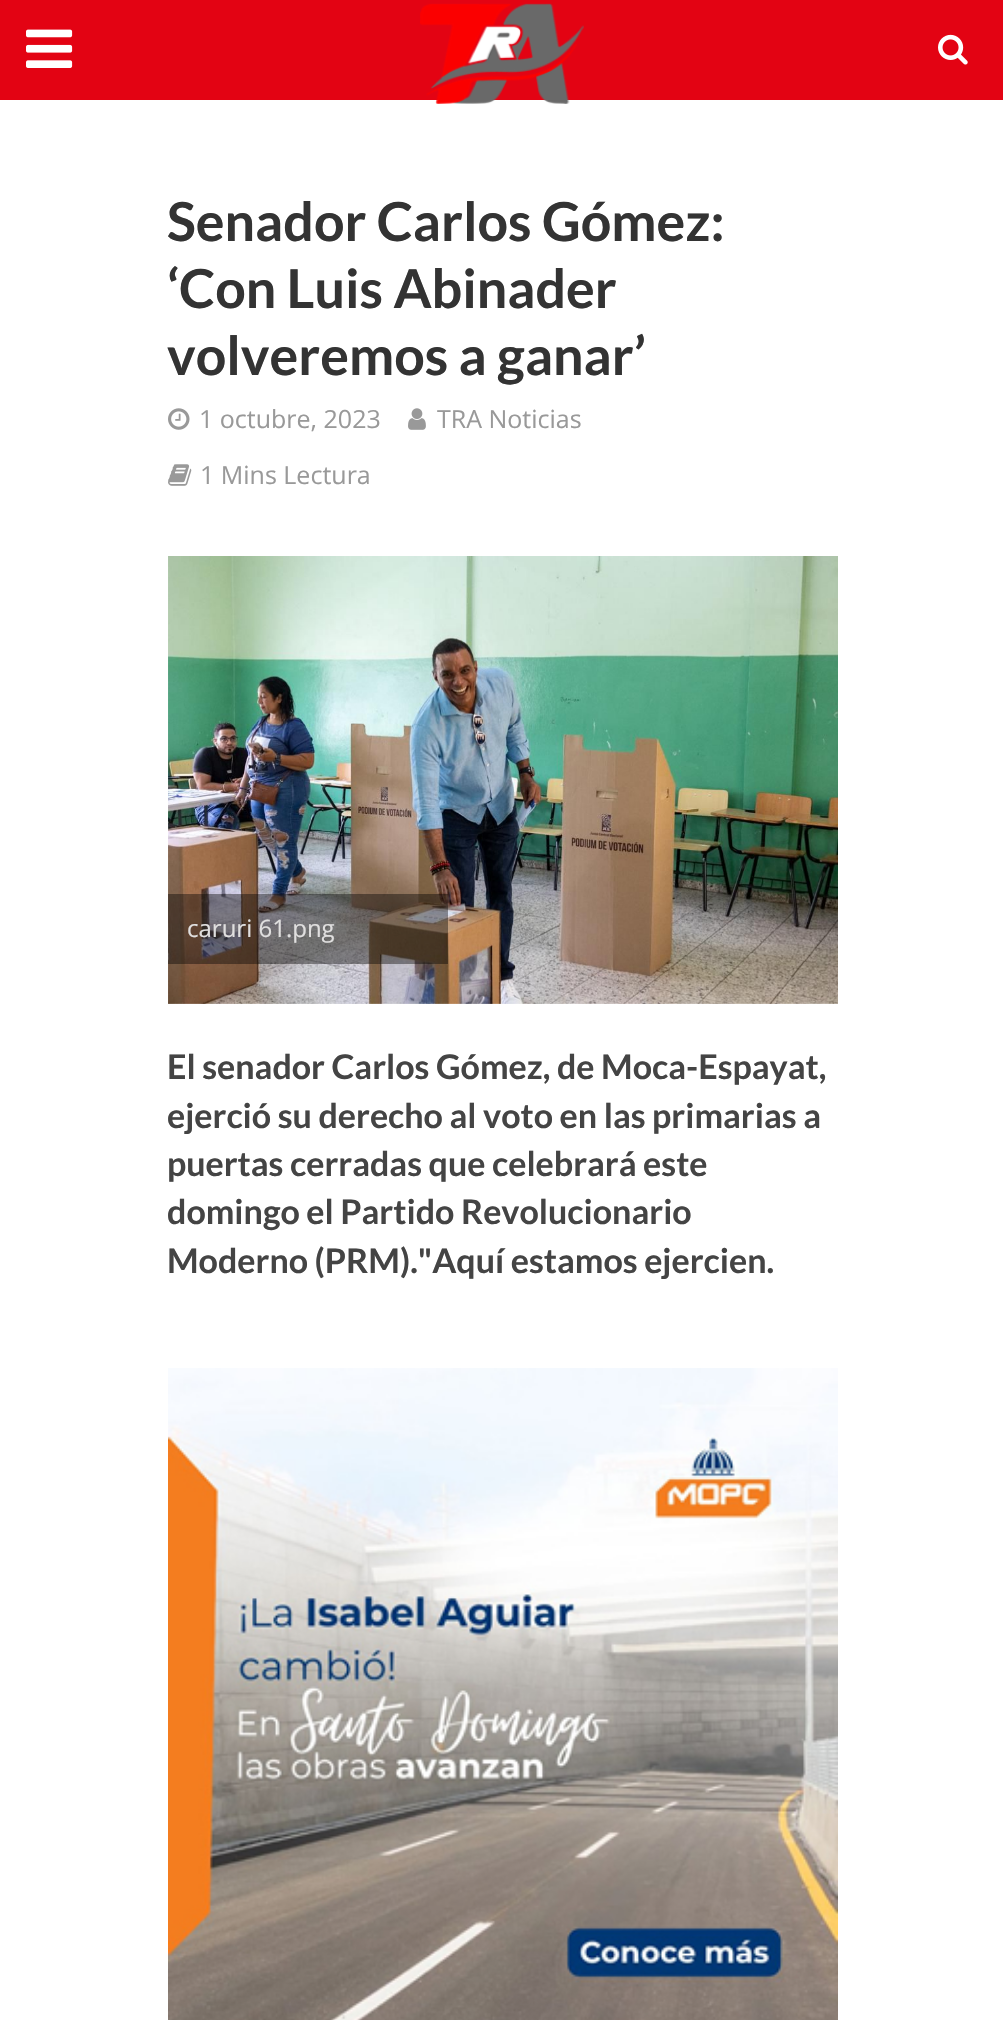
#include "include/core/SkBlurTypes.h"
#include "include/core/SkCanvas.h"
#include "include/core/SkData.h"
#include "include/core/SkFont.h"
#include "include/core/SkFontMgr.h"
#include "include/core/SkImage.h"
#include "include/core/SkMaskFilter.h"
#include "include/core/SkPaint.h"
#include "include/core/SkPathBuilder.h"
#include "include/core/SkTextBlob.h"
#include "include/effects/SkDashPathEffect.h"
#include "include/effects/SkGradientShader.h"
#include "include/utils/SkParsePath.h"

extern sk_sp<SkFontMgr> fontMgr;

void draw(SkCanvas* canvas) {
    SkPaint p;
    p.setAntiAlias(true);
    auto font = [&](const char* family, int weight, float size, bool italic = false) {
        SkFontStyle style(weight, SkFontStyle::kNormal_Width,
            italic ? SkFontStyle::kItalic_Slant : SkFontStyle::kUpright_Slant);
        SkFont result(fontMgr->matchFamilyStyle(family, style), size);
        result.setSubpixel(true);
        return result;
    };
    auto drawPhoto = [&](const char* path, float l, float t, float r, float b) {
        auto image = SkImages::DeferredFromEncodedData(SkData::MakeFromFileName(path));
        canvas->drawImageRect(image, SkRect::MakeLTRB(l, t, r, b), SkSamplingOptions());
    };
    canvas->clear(0xFFFFFFFF);
    p.setColor(0xFFE30313);
    canvas->drawRect(SkRect::MakeLTRB(0, 0, 1003, 100), p);
    drawPhoto("media/1.png", 26, 29, 73, 68);
    drawPhoto("media/2.png", 420, 3, 584, 104);
    drawPhoto("media/3.png", 938, 34, 968, 65);
    auto font1 = font("Lato", 700, 53.75f);
    p.setColor(0xFF333333);
    {
        const struct { const char* s; float x, y; } items[] = {
            {"Senador Carlos Gómez:", 167, 241},
            {"‘Con Luis Abinader", 167, 308},
            {"volveremos a ganar’", 167, 375},
        };
        for (auto [s, x, y] : items) {
            canvas->drawString(s, x, y, font1, p);
        }
    }
    drawPhoto("media/4.png", 168, 408, 190, 430);
    auto font2 = font("Open Sans", 400, 25);
    p.setColor(0xFF999999);
    canvas->drawString("1 octubre, 2023", 199, 428, font2, p);
    drawPhoto("media/5.png", 408, 408, 426, 430);
    canvas->drawString("TRA Noticias", 437, 428, font2, p);
    drawPhoto("media/6.png", 168, 464, 192, 486);
    canvas->drawString("1 Mins Lectura", 200, 484, font2, p);
    drawPhoto("media/7.png", 168, 556, 838, 1004);
    p.setColor(0x66000000);
    canvas->drawRect(SkRect::MakeLTRB(168, 894, 448, 964), p);
    auto font3 = font("Open Sans", 400, 24);
    p.setColor(0xFFE0DFDF);
    canvas->drawString("caruri 61.png", 187, 937, font3, p);
    auto font4 = font("Lato", 700, 34);
    p.setColor(0xFF444444);
    {
        const struct { const char* s; float x, y; } items[] = {
            {"El senador Carlos Gómez, de Moca-Espayat,", 167, 1079},
            {"ejerció su derecho al voto en las primarias a", 167, 1128},
            {"puertas cerradas que celebrará este", 167, 1176},
            {"domingo el Partido Revolucionario", 167, 1224},
            {"Moderno (PRM).\"Aquí estamos ejercien.", 167, 1273},
        };
        for (auto [s, x, y] : items) {
            canvas->drawString(s, x, y, font4, p);
        }
    }
    drawPhoto("media/8.png", 168, 1368, 838, 2020);
}
